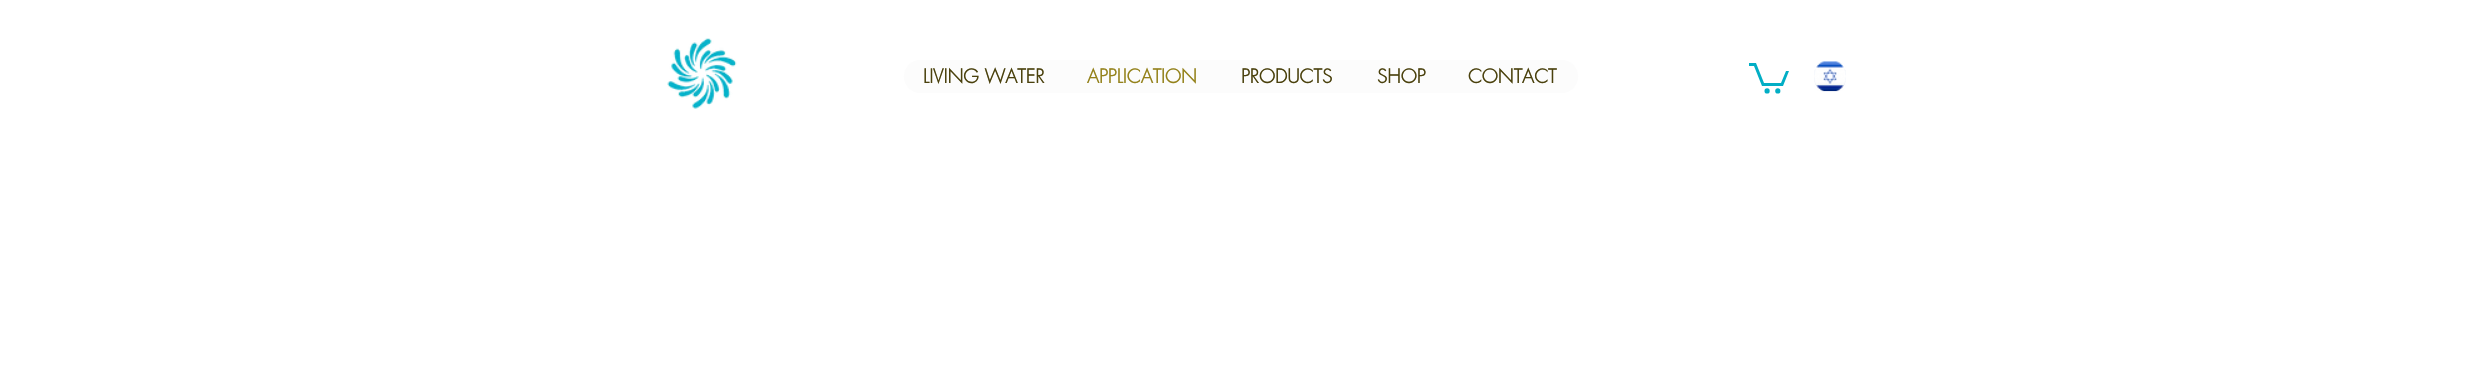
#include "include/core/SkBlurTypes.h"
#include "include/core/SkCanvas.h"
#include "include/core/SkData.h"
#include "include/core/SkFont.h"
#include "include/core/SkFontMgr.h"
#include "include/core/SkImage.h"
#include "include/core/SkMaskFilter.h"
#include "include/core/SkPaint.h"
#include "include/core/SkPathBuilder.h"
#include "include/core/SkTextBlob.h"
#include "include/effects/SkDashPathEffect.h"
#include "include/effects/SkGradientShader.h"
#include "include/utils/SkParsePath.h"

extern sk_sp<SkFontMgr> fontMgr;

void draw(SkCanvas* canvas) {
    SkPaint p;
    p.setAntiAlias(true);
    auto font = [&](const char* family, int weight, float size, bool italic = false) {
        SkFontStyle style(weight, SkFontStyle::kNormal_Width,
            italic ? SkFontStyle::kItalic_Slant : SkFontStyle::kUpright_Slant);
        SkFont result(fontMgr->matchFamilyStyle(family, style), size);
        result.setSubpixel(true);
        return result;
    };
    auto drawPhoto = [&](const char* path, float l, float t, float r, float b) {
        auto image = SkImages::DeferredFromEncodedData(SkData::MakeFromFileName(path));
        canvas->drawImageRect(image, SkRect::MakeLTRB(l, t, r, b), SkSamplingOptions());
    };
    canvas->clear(0xFFFFFFFF);
    drawPhoto("media/1.png", 667, 38, 737, 109);
    p.setColor(0xFFFCFCFC);
    canvas->drawRoundRect(SkRect::MakeLTRB(904, 60, 1578, 93), 16.5f, 16.5f, p);
    auto font1 = font("futura", 700, 18.75f);
    p.setColor(0xFF4A410D);
    canvas->drawString("LIVING WATER", 923, 83, font1, p);
    p.setColor(0xFF94821B);
    canvas->drawString("APPLICATION", 1087, 83, font1, p);
    p.setColor(0xFF4A410D);
    {
        const struct { const char* s; float x, y; } items[] = {
            {"PRODUCTS", 1241, 83},
            {"SHOP", 1377, 83},
            {"CONTACT", 1468, 83},
        };
        for (auto [s, x, y] : items) {
            canvas->drawString(s, x, y, font1, p);
        }
    }
    p.setColor(0xFF02AEC5);
    canvas->drawPath(SkPathBuilder().moveTo(1789, 71).lineTo(1783, 86).lineTo(1762, 86).lineTo(1754, 66).lineTo(1749, 66).lineTo(1749, 63).lineTo(1756, 63).lineTo(1764, 83).lineTo(1781, 83).lineTo(1786, 71).detach(), p);
    canvas->drawCircle(1777.8f, 90.9f, 2.6f, p);
    canvas->drawCircle(1767.1f, 90.9f, 2.6f, p);
    drawPhoto("media/2.png", 1814, 61, 1846, 92);
}
